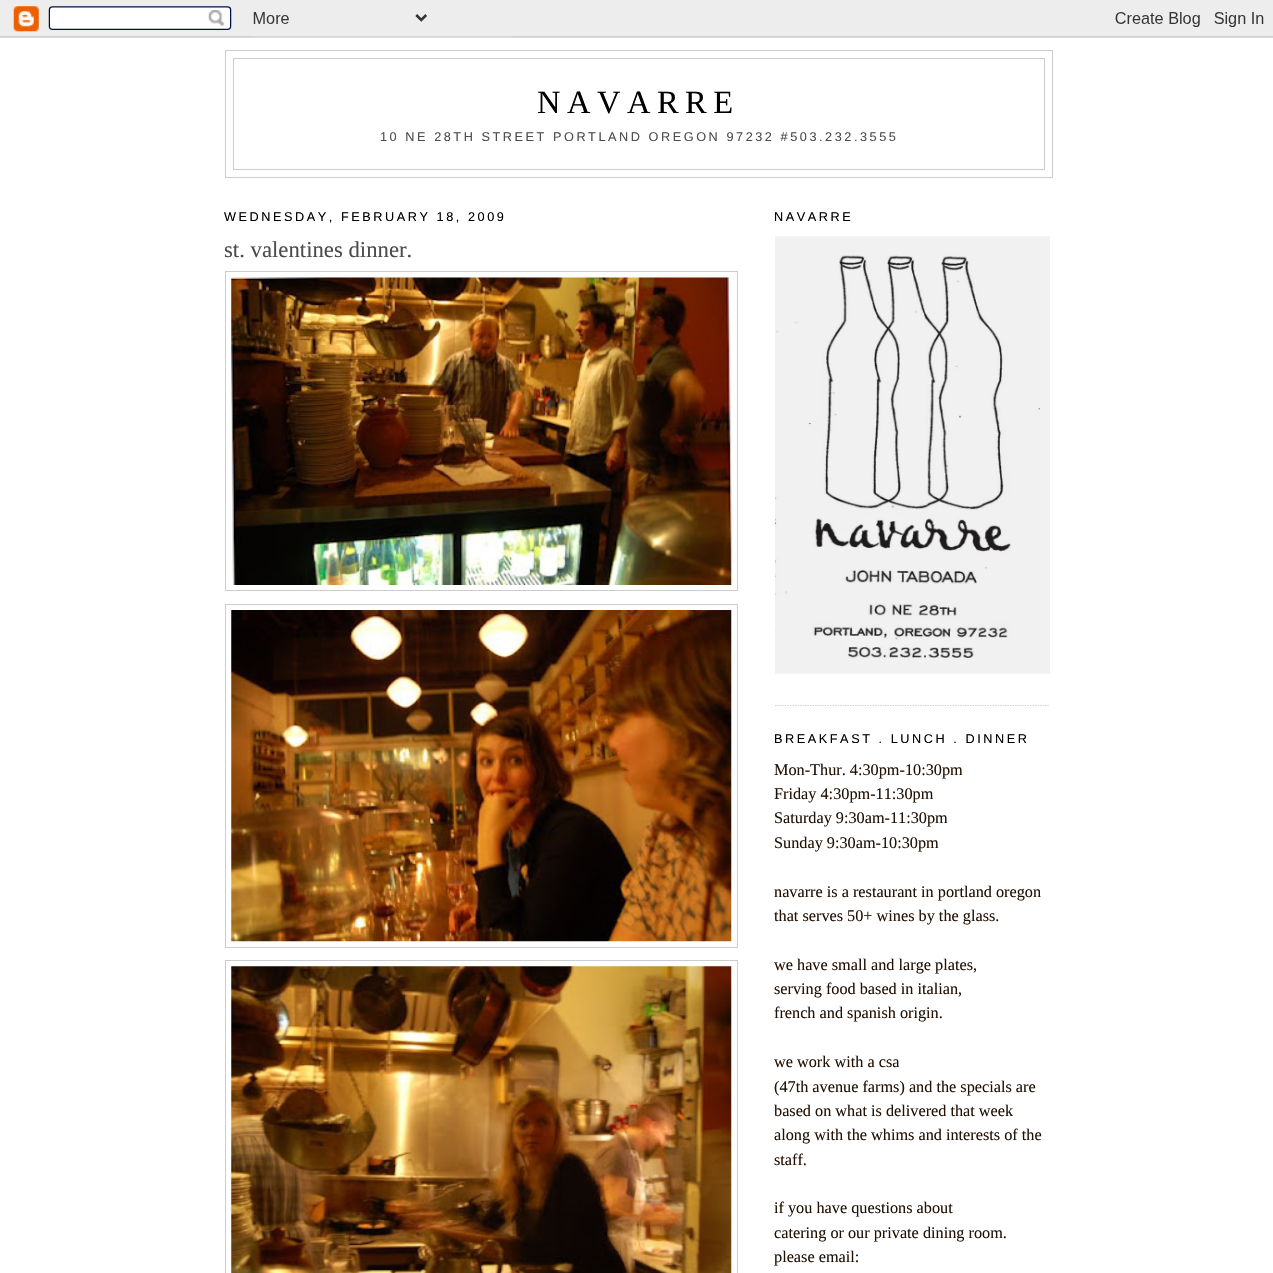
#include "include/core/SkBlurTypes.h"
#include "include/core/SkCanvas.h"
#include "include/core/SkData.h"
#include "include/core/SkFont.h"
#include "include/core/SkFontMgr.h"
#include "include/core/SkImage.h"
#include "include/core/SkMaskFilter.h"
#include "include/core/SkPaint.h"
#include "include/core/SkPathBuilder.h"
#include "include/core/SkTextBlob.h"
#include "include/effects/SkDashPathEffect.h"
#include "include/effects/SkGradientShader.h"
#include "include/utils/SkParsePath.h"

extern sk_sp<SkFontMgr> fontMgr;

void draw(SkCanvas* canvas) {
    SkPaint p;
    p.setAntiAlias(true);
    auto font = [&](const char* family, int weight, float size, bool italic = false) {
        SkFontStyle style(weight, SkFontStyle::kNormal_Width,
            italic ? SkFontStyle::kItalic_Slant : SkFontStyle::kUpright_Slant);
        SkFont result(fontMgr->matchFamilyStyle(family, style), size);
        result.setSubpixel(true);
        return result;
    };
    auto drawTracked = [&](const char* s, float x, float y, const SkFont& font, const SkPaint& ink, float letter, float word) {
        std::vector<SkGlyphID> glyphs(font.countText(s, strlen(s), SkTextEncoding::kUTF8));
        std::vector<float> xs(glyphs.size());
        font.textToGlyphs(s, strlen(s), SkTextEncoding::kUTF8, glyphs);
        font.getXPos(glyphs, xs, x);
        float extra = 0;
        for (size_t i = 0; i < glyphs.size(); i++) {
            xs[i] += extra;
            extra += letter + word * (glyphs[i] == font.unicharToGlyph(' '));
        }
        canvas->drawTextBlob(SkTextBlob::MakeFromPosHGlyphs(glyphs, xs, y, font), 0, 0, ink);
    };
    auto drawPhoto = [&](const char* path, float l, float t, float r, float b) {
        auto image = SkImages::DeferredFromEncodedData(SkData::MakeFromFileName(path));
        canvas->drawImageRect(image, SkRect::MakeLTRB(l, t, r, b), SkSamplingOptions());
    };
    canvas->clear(0xFFFFFFFF);
    drawPhoto("media/1.png", 0, 0, 1273, 38);
    p.setStyle(SkPaint::kStroke_Style);
    p.setStrokeWidth(1);
    p.setColor(0xFFCCCCCC);
    canvas->drawRect(SkRect::MakeLTRB(225.5f, 50.5f, 1052.5f, 177.5f), p);
    canvas->drawRect(SkRect::MakeLTRB(233.5f, 58.5f, 1044.5f, 169.5f), p);
    auto font1 = font("Liberation Serif", 400, 32.5f);
    p.setStyle(SkPaint::kFill_Style);
    p.setColor(0xFF000000);
    drawTracked("NAVARRE", 537, 113, font1, p, 6.5f, 0);
    auto font2 = font("Liberation Sans", 400, 12.7f);
    p.setColor(0xFF4C4C4C);
    drawTracked("10 NE 28TH STREET PORTLAND OREGON 97232 #503.232.3555", 380, 141, font2, p, 2.55f, 0);
    p.setColor(0xFF000000);
    drawTracked("WEDNESDAY, FEBRUARY 18, 2009", 224, 221, font2, p, 2.55f, 0);
    auto font3 = font("Liberation Serif", 400, 22.75f);
    p.setColor(0xFF4C4C4C);
    canvas->drawString("st. valentines dinner.", 224, 257, font3, p);
    p.setStyle(SkPaint::kStroke_Style);
    p.setColor(0xFFCCCCCC);
    canvas->drawRect(SkRect::MakeLTRB(225.5f, 271.5f, 737.5f, 590.5f), p);
    drawPhoto("media/2.png", 231, 277, 732, 585);
    canvas->drawRect(SkRect::MakeLTRB(225.5f, 604.5f, 737.5f, 947.5f), p);
    drawPhoto("media/3.png", 231, 610, 732, 942);
    canvas->drawRect(SkRect::MakeLTRB(225.5f, 960.5f, 737.5f, 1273.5f), p);
    drawPhoto("media/4.png", 231, 966, 732, 1273);
    p.setStrokeWidth(1.2f);
    p.setPathEffect(SkDashPathEffect::Make({{1.25f, 1.25f}}, 0));
    canvas->drawPath(SkPathBuilder().moveTo(775, 705.5f).lineTo(1050, 705.5f).detach(), p);
    p.setPathEffect(nullptr);
    p.setStyle(SkPaint::kFill_Style);
    p.setColor(0xFF000000);
    drawTracked("NAVARRE", 774, 221, font2, p, 2.55f, 0);
    drawPhoto("media/5.png", 775, 236, 1050, 674);
    drawTracked("BREAKFAST . LUNCH . DINNER", 774, 743, font2, p, 2.55f, 0);
    auto font4 = font("Liberation Serif", 400, 16.25f);
    p.setColor(0xFF221205);
    {
        const struct { const char* s; float x, y; } items[] = {
            {"Mon-Thur. 4:30pm-10:30pm", 774, 775},
            {"Friday 4:30pm-11:30pm", 774, 799},
            {"Saturday 9:30am-11:30pm", 774, 823},
            {"Sunday 9:30am-10:30pm", 774, 848},
            {"navarre is a restaurant in portland oregon", 774, 897},
            {"that serves 50+ wines by the glass.", 774, 921},
            {"we have small and large plates,", 774, 970},
            {"serving food based in italian,", 774, 994},
            {"french and spanish origin.", 774, 1018},
            {"we work with a csa", 774, 1067},
            {"(47th avenue farms) and the specials are", 774, 1092},
            {"based on what is delivered that week", 774, 1116},
            {"along with the whims and interests of the", 774, 1140},
            {"staff.", 774, 1165},
            {"if you have questions about", 774, 1213},
            {"catering or our private dining room.", 774, 1238},
            {"please email:", 774, 1262},
        };
        for (auto [s, x, y] : items) {
            canvas->drawString(s, x, y, font4, p);
        }
    }
}
